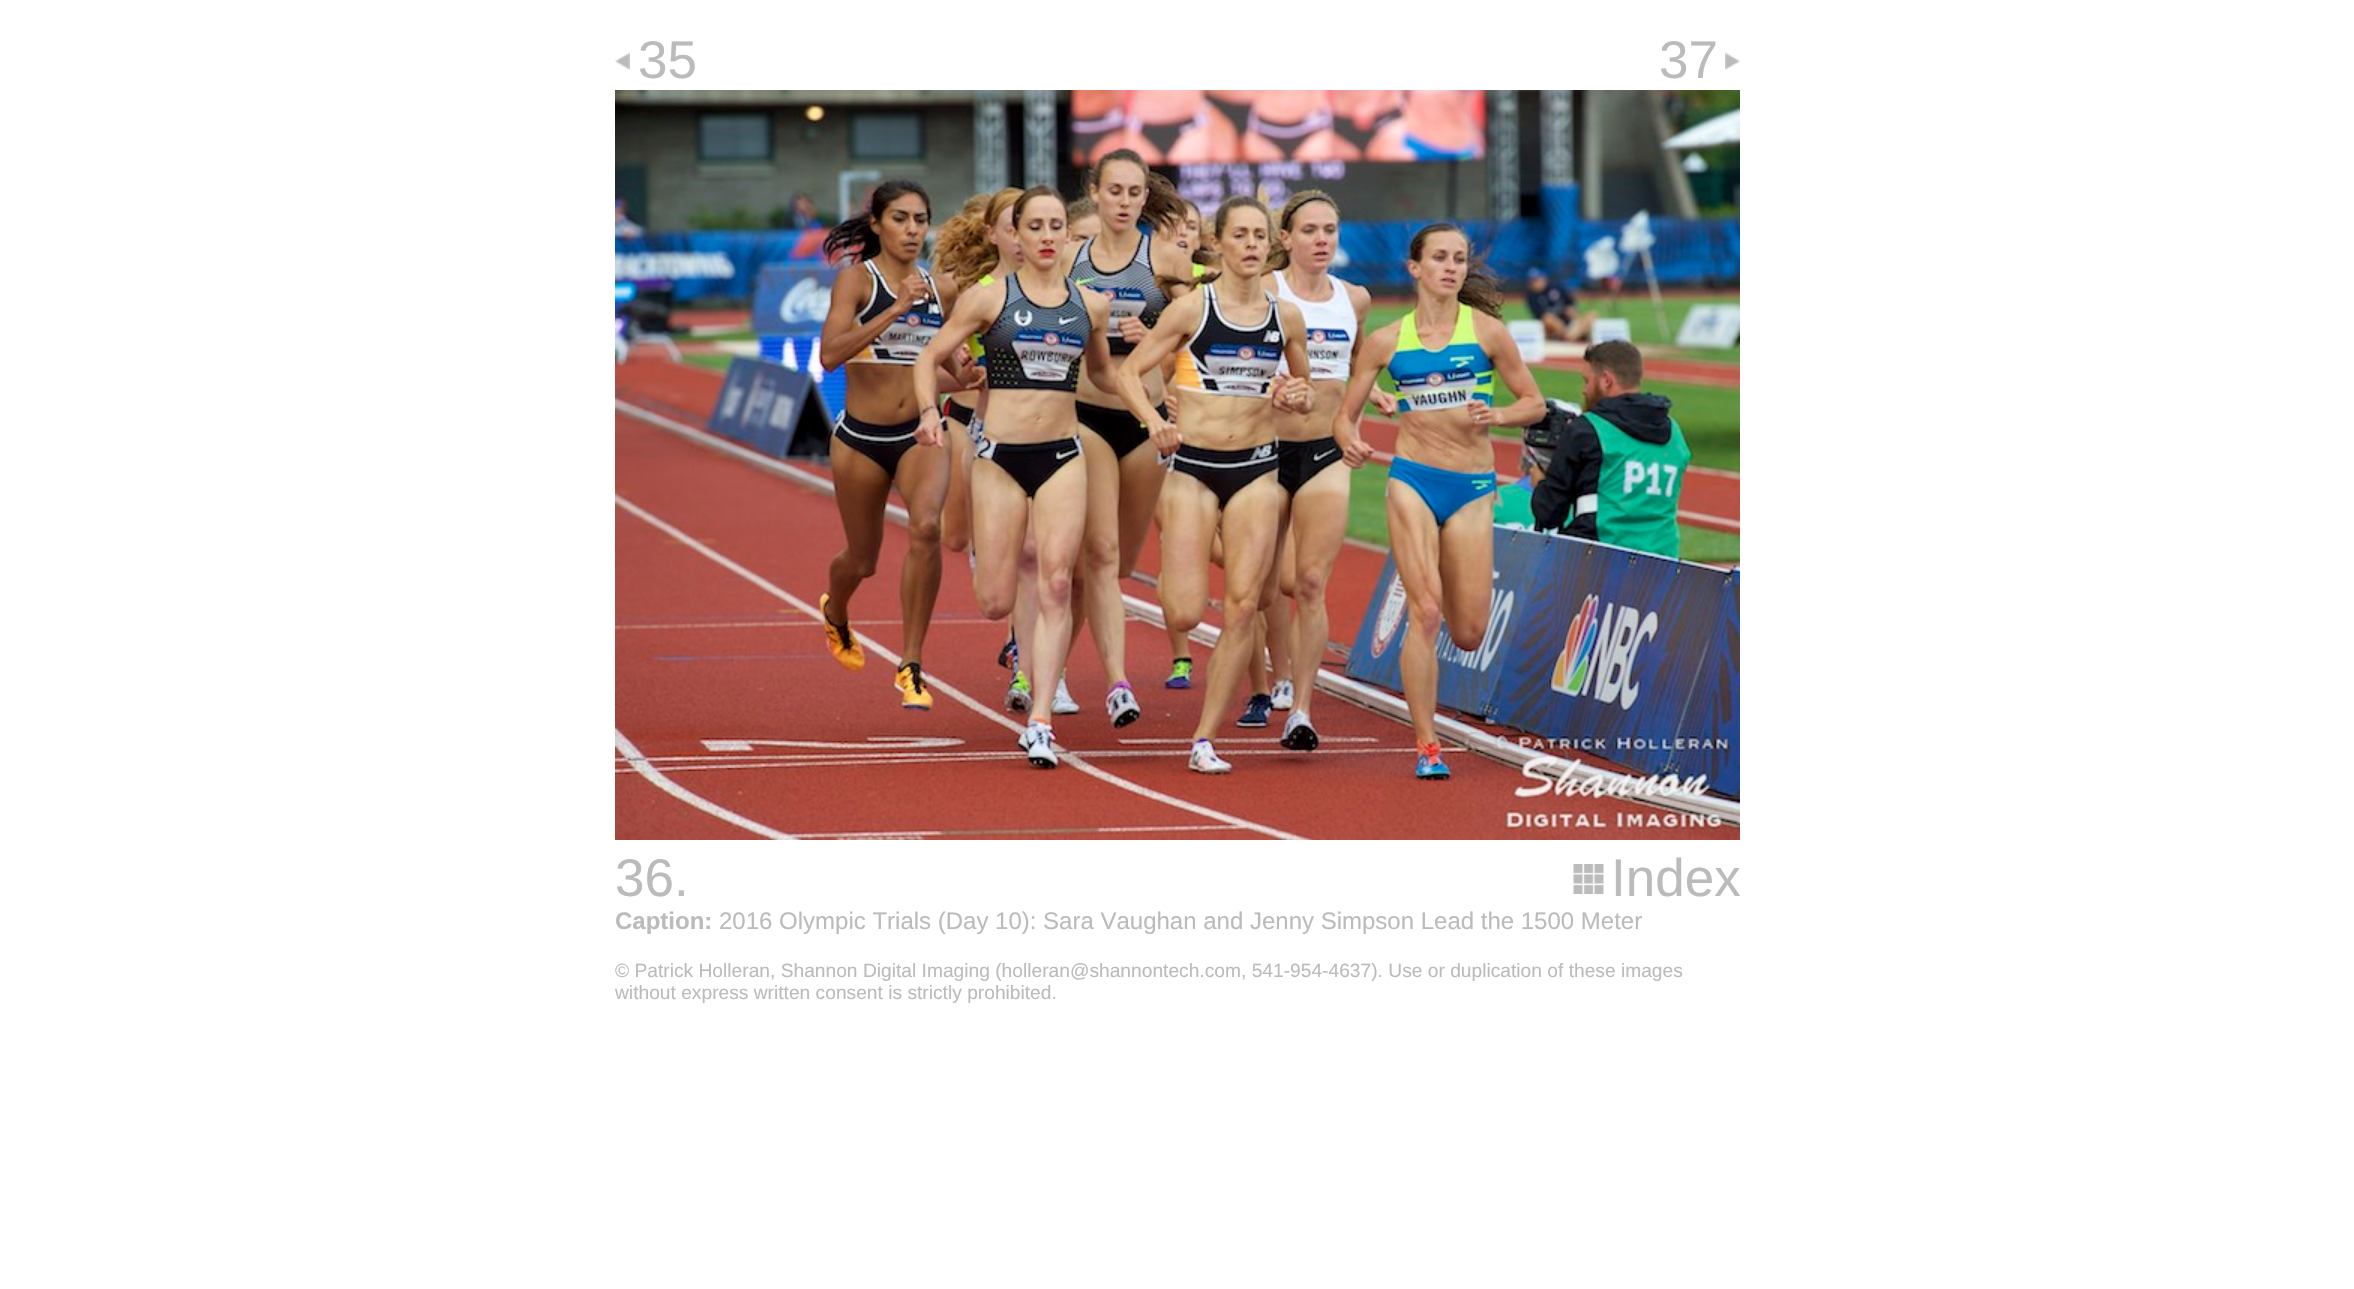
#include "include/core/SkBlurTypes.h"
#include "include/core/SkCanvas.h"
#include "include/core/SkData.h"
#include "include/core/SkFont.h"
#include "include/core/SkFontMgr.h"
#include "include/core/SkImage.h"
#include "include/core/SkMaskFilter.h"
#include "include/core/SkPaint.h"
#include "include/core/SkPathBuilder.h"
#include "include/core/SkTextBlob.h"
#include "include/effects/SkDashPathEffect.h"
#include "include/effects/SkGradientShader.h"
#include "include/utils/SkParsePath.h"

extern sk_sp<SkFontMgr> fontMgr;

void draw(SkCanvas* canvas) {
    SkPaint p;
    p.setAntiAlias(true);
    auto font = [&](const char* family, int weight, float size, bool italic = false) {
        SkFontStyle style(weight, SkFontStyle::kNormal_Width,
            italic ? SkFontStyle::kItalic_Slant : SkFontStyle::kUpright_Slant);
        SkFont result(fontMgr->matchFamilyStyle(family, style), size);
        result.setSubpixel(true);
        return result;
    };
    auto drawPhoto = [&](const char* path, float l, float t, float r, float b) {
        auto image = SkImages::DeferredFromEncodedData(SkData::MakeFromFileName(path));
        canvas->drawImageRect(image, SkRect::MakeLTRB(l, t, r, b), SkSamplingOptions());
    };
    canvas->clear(0xFFFFFFFF);
    drawPhoto("media/1.png", 615, 52, 630, 70);
    auto font1 = font("Liberation Sans", 400, 53);
    p.setColor(0xFFBBBBBB);
    canvas->drawString("35", 638, 78, font1, p);
    canvas->drawString("37", 1659, 78, font1, p);
    drawPhoto("media/2.png", 1725, 52, 1740, 70);
    drawPhoto("media/3.png", 615, 90, 1740, 840);
    canvas->drawString("36.", 615, 896, font1, p);
    drawPhoto("media/4.png", 1573, 864, 1604, 894);
    canvas->drawString("Index", 1611, 896, font1, p);
    auto font2 = font("Liberation Sans", 700, 24);
    canvas->drawString("Caption:", 615, 929, font2, p);
    auto font3 = font("Liberation Sans", 400, 24);
    canvas->drawString("2016 Olympic Trials (Day 10): Sara Vaughan and Jenny Simpson Lead the 1500 Meter", 719, 929, font3, p);
    auto font4 = font("Liberation Sans", 400, 19.2f);
    canvas->drawString("© Patrick Holleran, Shannon Digital Imaging (holleran@shannontech.com, 541-954-4637). Use or duplication of these images", 615, 977, font4, p);
    canvas->drawString("without express written consent is strictly prohibited.", 615, 999, font4, p);
}
